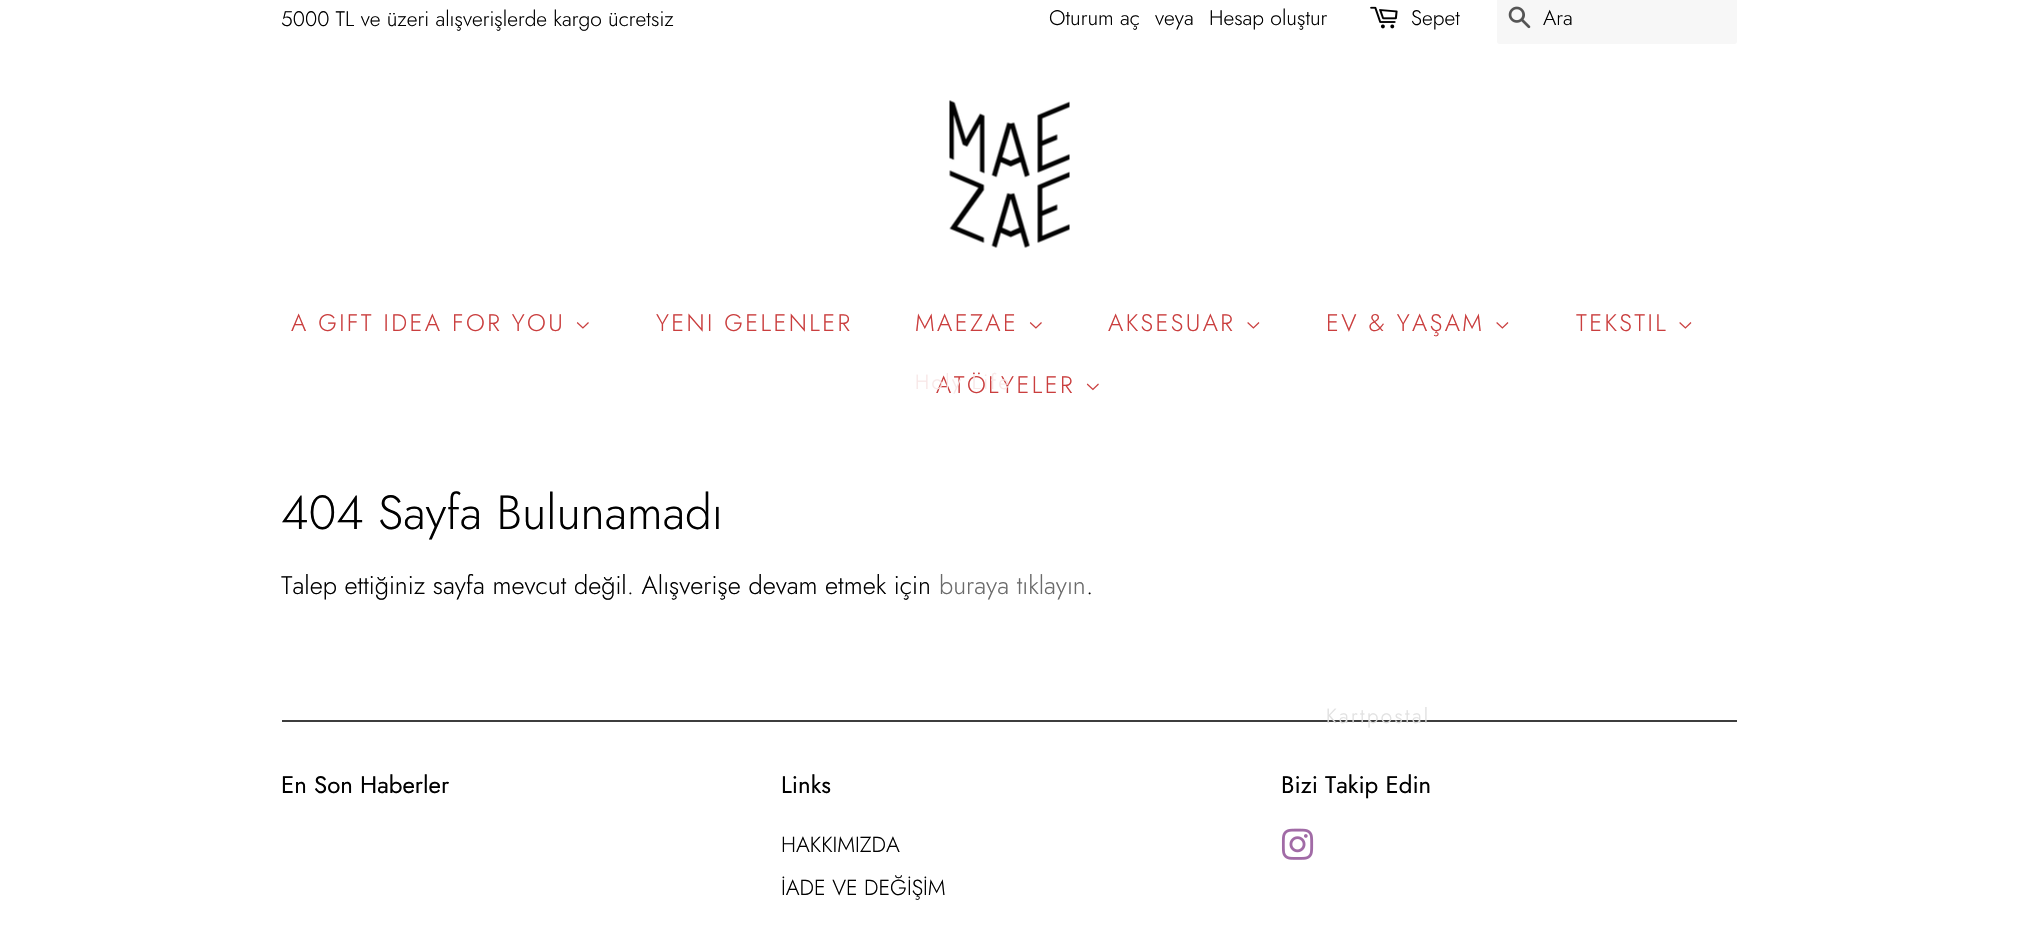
#include "include/core/SkBlurTypes.h"
#include "include/core/SkCanvas.h"
#include "include/core/SkData.h"
#include "include/core/SkFont.h"
#include "include/core/SkFontMgr.h"
#include "include/core/SkImage.h"
#include "include/core/SkMaskFilter.h"
#include "include/core/SkPaint.h"
#include "include/core/SkPathBuilder.h"
#include "include/core/SkTextBlob.h"
#include "include/effects/SkDashPathEffect.h"
#include "include/effects/SkGradientShader.h"
#include "include/utils/SkParsePath.h"

extern sk_sp<SkFontMgr> fontMgr;

void draw(SkCanvas* canvas) {
    SkPaint p;
    p.setAntiAlias(true);
    auto font = [&](const char* family, int weight, float size, bool italic = false) {
        SkFontStyle style(weight, SkFontStyle::kNormal_Width,
            italic ? SkFontStyle::kItalic_Slant : SkFontStyle::kUpright_Slant);
        SkFont result(fontMgr->matchFamilyStyle(family, style), size);
        result.setSubpixel(true);
        return result;
    };
    auto drawTracked = [&](const char* s, float x, float y, const SkFont& font, const SkPaint& ink, float letter, float word) {
        std::vector<SkGlyphID> glyphs(font.countText(s, strlen(s), SkTextEncoding::kUTF8));
        std::vector<float> xs(glyphs.size());
        font.textToGlyphs(s, strlen(s), SkTextEncoding::kUTF8, glyphs);
        font.getXPos(glyphs, xs, x);
        float extra = 0;
        for (size_t i = 0; i < glyphs.size(); i++) {
            xs[i] += extra;
            extra += letter + word * (glyphs[i] == font.unicharToGlyph(' '));
        }
        canvas->drawTextBlob(SkTextBlob::MakeFromPosHGlyphs(glyphs, xs, y, font), 0, 0, ink);
    };
    auto drawPhoto = [&](const char* path, float l, float t, float r, float b) {
        auto image = SkImages::DeferredFromEncodedData(SkData::MakeFromFileName(path));
        canvas->drawImageRect(image, SkRect::MakeLTRB(l, t, r, b), SkSamplingOptions());
    };
    canvas->clear(0xFFFFFFFF);
    auto font1 = font("Jost", 300, 21);
    p.setColor(0xFF000000);
    {
        const struct { const char* s; float x, y; } items[] = {
            {"5000 TL ve üzeri alışverişlerde kargo ücretsiz", 281, 26},
            {"Oturum aç", 1049, 25},
            {"veya", 1155, 25},
            {"Hesap oluştur", 1209, 25},
        };
        for (auto [s, x, y] : items) {
            canvas->drawString(s, x, y, font1, p);
        }
    }
    drawPhoto("media/1.png", 1370, 6, 1398, 29);
    canvas->drawString("Sepet", 1411, 25, font1, p);
    p.setColor(0xFFF7F7F7);
    canvas->drawRoundRect(SkRect::MakeLTRB(1497, -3, 1737, 44), 3, 3, p);
    drawPhoto("media/2.png", 1508, 6, 1531, 29);
    p.setColor(0xFF000000);
    canvas->drawString("Ara", 1543, 25, font1, p);
    drawPhoto("media/3.png", 949, 100, 1070, 248);
    auto font2 = font("Jost", 300, 24);
    p.setColor(0xFFCA3E3E);
    drawTracked("A GIFT IDEA FOR YOU", 291, 331, font2, p, 2.4f, 0);
    drawPhoto("media/4.png", 576, 322, 589, 329);
    drawTracked("YENI GELENLER", 656, 331, font2, p, 2.4f, 0);
    drawTracked("MAEZAE", 915, 331, font2, p, 2.4f, 0);
    drawPhoto("media/4.png", 1029, 322, 1042, 329);
    drawTracked("ATÖLYELER", 936, 393, font2, p, 2.4f, 0);
    auto font3 = font("Jost", 300, 20.5f);
    p.setColor(0xFFF8E7E7);
    drawTracked("Holy Life", 915, 389, font3, p, 2.4f, 0);
    p.setColor(0xFFCA3E3E);
    drawTracked("AKSESUAR", 1108, 331, font2, p, 2.4f, 0);
    drawPhoto("media/5.png", 1247, 322, 1260, 329);
    drawTracked("EV & YAŞAM", 1326, 331, font2, p, 2.4f, 0);
    drawPhoto("media/5.png", 1496, 322, 1509, 329);
    p.setColor(0xFF3D3D3D);
    canvas->drawRect(SkRect::MakeLTRB(282, 720, 1737, 722), p);
    p.setColor(0xFFE0E0E0);
    drawTracked("Kartpostal", 1326, 723, font3, p, 2.4f, 0);
    p.setColor(0xFFCA3E3E);
    drawTracked("TEKSTIL", 1576, 331, font2, p, 2.4f, 0);
    drawPhoto("media/5.png", 1679, 322, 1692, 329);
    drawPhoto("media/6.png", 1086, 383, 1099, 391);
    auto font4 = font("Jost", 300, 48);
    p.setColor(0xFF000000);
    canvas->drawString("404 Sayfa Bulunamadı", 281, 529, font4, p);
    auto font5 = font("Jost", 300, 25.5f);
    canvas->drawString("Talep ettiğiniz sayfa mevcut değil. Alışverişe devam etmek için", 281, 594, font5, p);
    p.setColor(0xFF6A6A6A);
    canvas->drawString("buraya tıklayın", 939, 594, font5, p);
    p.setColor(0xFF000000);
    canvas->drawString(".", 1086, 594, font5, p);
    auto font6 = font("Jost", 400, 24);
    canvas->drawString("En Son Haberler", 281, 793, font6, p);
    canvas->drawString("Links", 781, 793, font6, p);
    auto font7 = font("Jost", 300, 21.75f);
    canvas->drawString("HAKKIMIZDA", 781, 852, font7, p);
    canvas->drawString("İADE VE DEĞİŞİM", 781, 895, font7, p);
    canvas->drawString("Bizi Takip Edin", 1281, 793, font6, p);
    drawPhoto("media/7.png", 1281, 828, 1314, 860);
}
